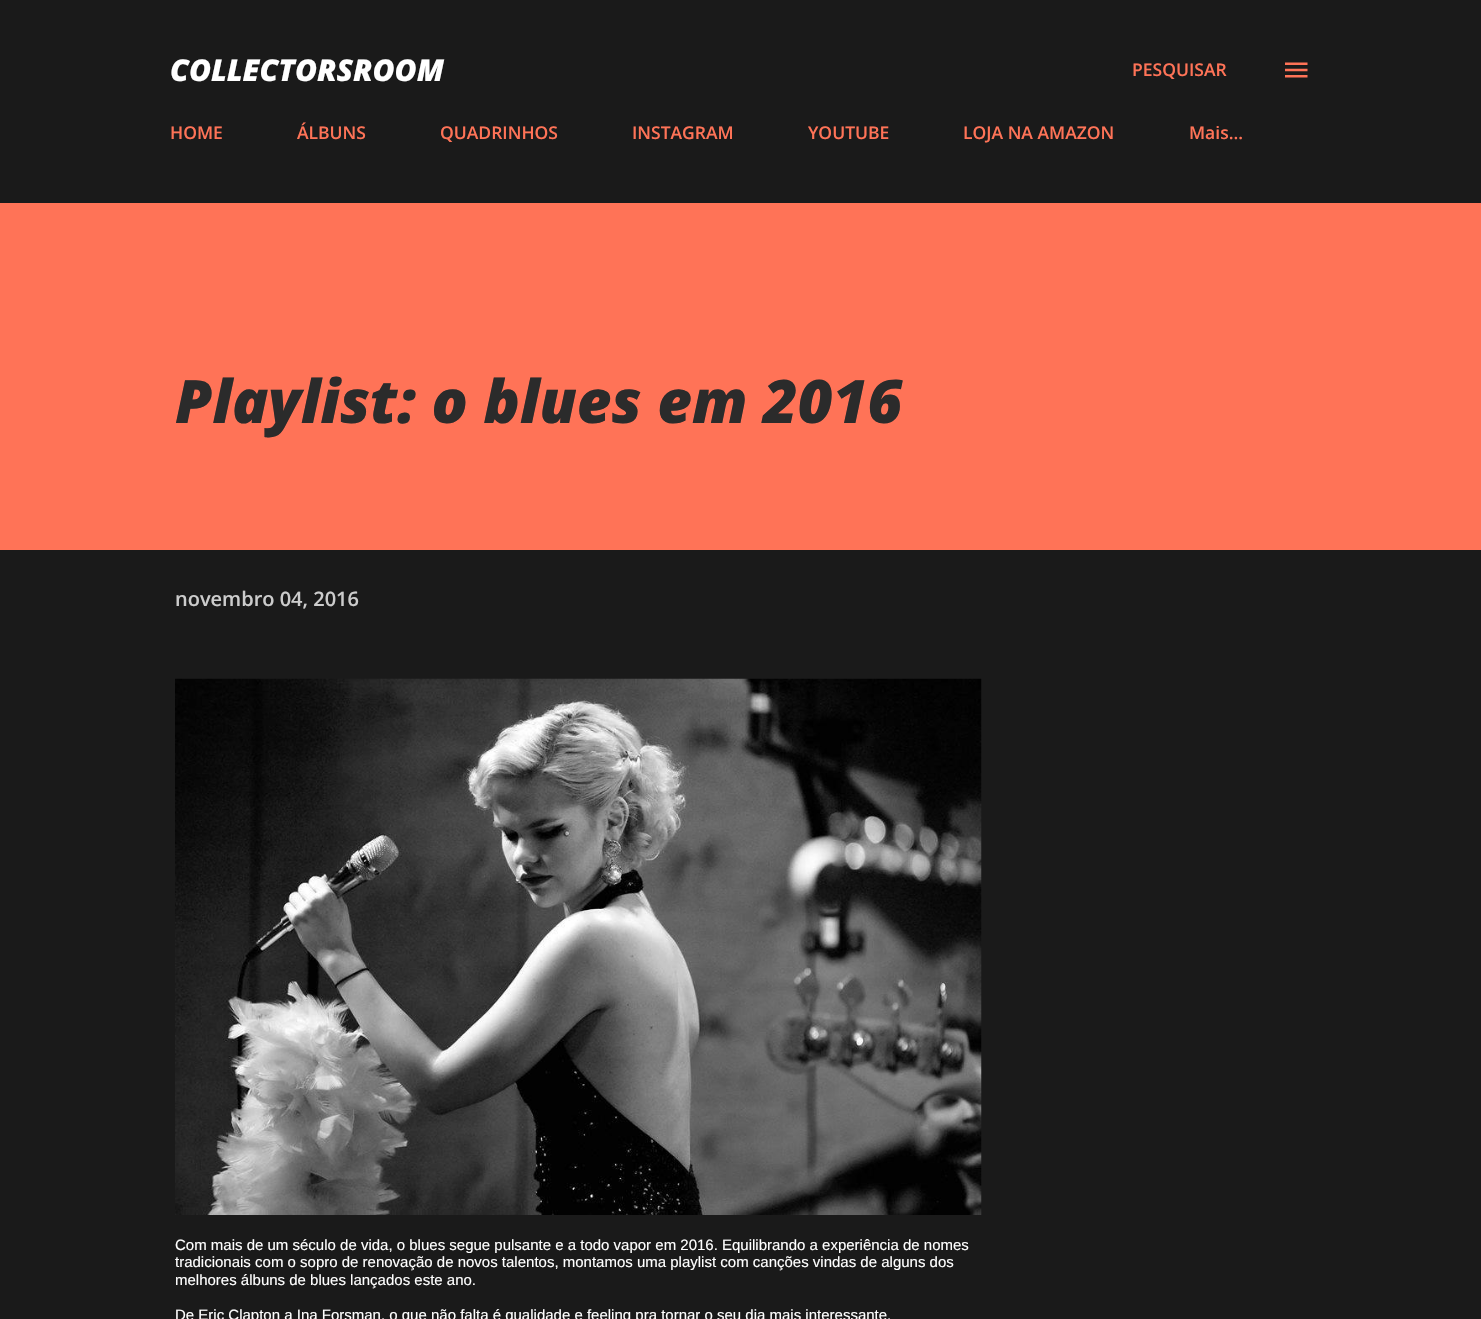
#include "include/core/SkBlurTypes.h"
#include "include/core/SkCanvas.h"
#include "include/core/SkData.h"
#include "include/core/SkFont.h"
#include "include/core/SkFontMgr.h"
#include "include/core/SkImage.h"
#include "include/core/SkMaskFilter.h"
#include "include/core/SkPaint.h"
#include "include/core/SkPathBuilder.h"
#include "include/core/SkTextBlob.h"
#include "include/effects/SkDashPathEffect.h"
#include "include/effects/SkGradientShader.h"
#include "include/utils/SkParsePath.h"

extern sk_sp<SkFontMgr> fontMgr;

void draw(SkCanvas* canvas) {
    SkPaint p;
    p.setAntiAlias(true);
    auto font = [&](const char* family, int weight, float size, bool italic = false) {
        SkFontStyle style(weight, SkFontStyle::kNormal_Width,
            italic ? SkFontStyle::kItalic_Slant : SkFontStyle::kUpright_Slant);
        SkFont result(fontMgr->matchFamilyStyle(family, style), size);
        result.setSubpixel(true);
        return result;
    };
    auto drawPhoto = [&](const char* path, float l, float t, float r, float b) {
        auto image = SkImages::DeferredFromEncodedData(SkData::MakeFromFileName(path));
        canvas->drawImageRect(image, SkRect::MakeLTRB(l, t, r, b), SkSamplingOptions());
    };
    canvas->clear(0xFF1A1A1A);
    auto font1 = font("Open Sans", 800, 30, true);
    p.setColor(0xFFFFFFFF);
    canvas->drawString("COLLECTORSROOM", 170, 81, font1, p);
    auto font2 = font("Open Sans", 600, 17.5f);
    p.setColor(0xFFFF7357);
    canvas->drawString("PESQUISAR", 1132, 76, font2, p);
    drawPhoto("media/1.png", 1285, 62, 1308, 78);
    {
        const struct { const char* s; float x, y; } items[] = {
            {"HOME", 170, 139},
            {"ÁLBUNS", 297, 139},
            {"QUADRINHOS", 440, 139},
            {"INSTAGRAM", 632, 139},
            {"YOUTUBE", 808, 139},
            {"LOJA NA AMAZON", 963, 139},
            {"Mais…", 1189, 139},
        };
        for (auto [s, x, y] : items) {
            canvas->drawString(s, x, y, font2, p);
        }
    }
    canvas->drawRect(SkRect::MakeLTRB(0, 203, 1481, 550), p);
    auto font3 = font("Open Sans", 800, 60, true);
    p.setColor(0xFF2B2B2B);
    canvas->drawString("Playlist: o blues em 2016", 175, 423, font3, p);
    auto font4 = font("Open Sans", 600, 20);
    p.setColor(0xFFCCCCCC);
    canvas->drawString("novembro 04, 2016", 175, 606, font4, p);
    drawPhoto("media/2.png", 175, 678, 982, 1215);
    auto font5 = font("Liberation Sans", 400, 15);
    p.setColor(0xFFFFFFFF);
    {
        const struct { const char* s; float x, y; } items[] = {
            {"Com mais de um século de vida, o blues segue pulsante e a todo vapor em 2016. Equilibrando a experiência de nomes", 175, 1250},
            {"tradicionais com o sopro de renovação de novos talentos, montamos uma playlist com canções vindas de alguns dos", 175, 1267},
            {"melhores álbuns de blues lançados este ano.", 175, 1285},
            {"De Eric Clapton a Ina Forsman, o que não falta é qualidade e feeling pra tornar o seu dia mais interessante.", 175, 1320},
        };
        for (auto [s, x, y] : items) {
            canvas->drawString(s, x, y, font5, p);
        }
    }
}
